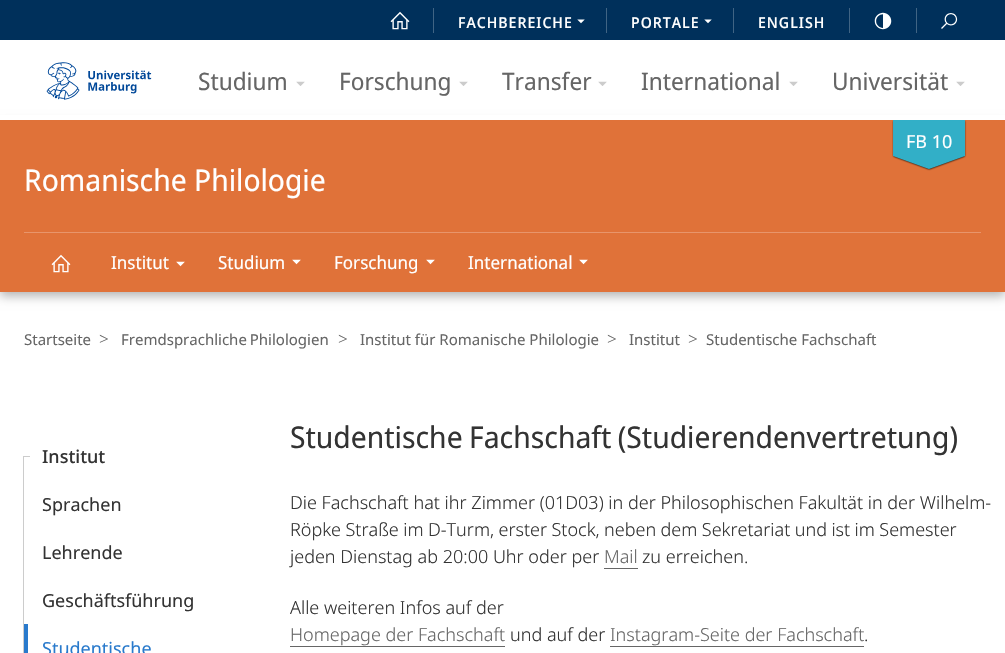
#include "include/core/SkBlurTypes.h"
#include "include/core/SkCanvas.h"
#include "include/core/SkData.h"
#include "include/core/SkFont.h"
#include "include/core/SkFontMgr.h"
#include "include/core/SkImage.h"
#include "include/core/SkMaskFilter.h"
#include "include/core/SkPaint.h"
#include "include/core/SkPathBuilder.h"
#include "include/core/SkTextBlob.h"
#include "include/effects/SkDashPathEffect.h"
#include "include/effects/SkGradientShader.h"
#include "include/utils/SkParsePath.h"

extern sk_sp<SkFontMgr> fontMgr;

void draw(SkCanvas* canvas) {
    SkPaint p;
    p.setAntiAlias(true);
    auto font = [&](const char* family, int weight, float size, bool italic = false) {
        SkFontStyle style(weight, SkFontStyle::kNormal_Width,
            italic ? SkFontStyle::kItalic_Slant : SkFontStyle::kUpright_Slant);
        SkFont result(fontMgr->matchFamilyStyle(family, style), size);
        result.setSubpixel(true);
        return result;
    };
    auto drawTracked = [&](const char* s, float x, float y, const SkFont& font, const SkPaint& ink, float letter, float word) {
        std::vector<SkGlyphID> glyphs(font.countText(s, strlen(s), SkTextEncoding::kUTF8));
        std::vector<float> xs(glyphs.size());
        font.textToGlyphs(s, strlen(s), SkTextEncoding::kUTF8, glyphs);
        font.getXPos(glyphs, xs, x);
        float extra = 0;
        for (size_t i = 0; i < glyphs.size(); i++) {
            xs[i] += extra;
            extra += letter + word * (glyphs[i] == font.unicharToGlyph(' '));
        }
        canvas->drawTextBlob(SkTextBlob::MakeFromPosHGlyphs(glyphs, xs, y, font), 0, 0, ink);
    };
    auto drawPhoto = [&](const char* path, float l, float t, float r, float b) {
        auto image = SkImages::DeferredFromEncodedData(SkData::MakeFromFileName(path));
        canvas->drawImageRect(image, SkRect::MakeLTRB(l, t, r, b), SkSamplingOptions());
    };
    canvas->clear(0xFFFFFFFF);
    p.setColor(0xFF00305B);
    canvas->drawRect(SkRect::MakeLTRB(0, 0, 1005, 40), p);
    drawPhoto("media/1.png", 390, 11, 410, 30);
    p.setColor(0xFF406484);
    canvas->drawRect(SkRect::MakeLTRB(433, 8, 434, 33), p);
    auto font1 = font("Noto Sans Display", 500, 15);
    p.setColor(0xFFFFFFFF);
    drawTracked("FACHBEREICHE", 458, 28, font1, p, 1, 0);
    drawPhoto("media/2.png", 577, 19, 585, 24);
    p.setColor(0xFF406484);
    canvas->drawRect(SkRect::MakeLTRB(606, 8, 607, 33), p);
    p.setColor(0xFFFFFFFF);
    drawTracked("PORTALE", 631, 28, font1, p, 1, 0);
    drawPhoto("media/2.png", 704, 19, 712, 24);
    p.setColor(0xFF406484);
    canvas->drawRect(SkRect::MakeLTRB(733, 8, 734, 33), p);
    p.setColor(0xFFFFFFFF);
    drawTracked("ENGLISH", 758, 28, font1, p, 1, 0);
    p.setColor(0xFF406484);
    canvas->drawRect(SkRect::MakeLTRB(849, 8, 850, 33), p);
    drawPhoto("media/3.png", 874, 12, 892, 30);
    canvas->drawRect(SkRect::MakeLTRB(916, 8, 917, 33), p);
    drawPhoto("media/4.png", 941, 13, 958, 29);
    p.setColor(0x4D000000);
    p.setMaskFilter(SkMaskFilter::MakeBlur(kNormal_SkBlurStyle, 5));
    canvas->drawRect(SkRect::MakeLTRB(0, 124, 1005, 296), p);
    p.setMaskFilter(nullptr);
    p.setColor(0xFFFFFFFF);
    canvas->drawRect(SkRect::MakeLTRB(0, 115, 1005, 120), p);
    drawPhoto("media/5.png", 46, 62, 152, 100);
    auto font2 = font("Noto Sans Display", 400, 24);
    p.setColor(0xFF666666);
    canvas->drawString("Studium", 198, 90, font2, p);
    drawPhoto("media/6.png", 296, 81, 305, 86);
    canvas->drawString("Forschung", 339, 90, font2, p);
    drawPhoto("media/6.png", 459, 81, 468, 86);
    canvas->drawString("Transfer", 502, 90, font2, p);
    drawPhoto("media/6.png", 598, 81, 607, 86);
    canvas->drawString("International", 641, 90, font2, p);
    drawPhoto("media/6.png", 789, 81, 798, 86);
    canvas->drawString("Universität", 832, 90, font2, p);
    drawPhoto("media/6.png", 956, 81, 965, 86);
    p.setColor(0xFFE07239);
    canvas->drawRect(SkRect::MakeLTRB(0, 120, 1005, 292), p);
    drawPhoto("media/7.png", 892, 120, 967, 171);
    drawPhoto("media/8.png", 893, 120, 965, 169);
    auto font3 = font("Noto Sans", 400, 18);
    p.setColor(0xFFFFFFFF);
    canvas->drawString("FB 10", 906, 148, font3, p);
    auto font4 = font("Noto Sans Display", 400, 30);
    canvas->drawString("Romanische Philologie", 24, 191, font4, p);
    p.setColor(0xFFE8956B);
    canvas->drawRect(SkRect::MakeLTRB(24, 232, 981, 233), p);
    drawPhoto("media/9.png", 51, 254, 71, 273);
    auto font5 = font("Noto Sans Display", 400, 18);
    p.setColor(0xFFFFFFFF);
    canvas->drawString("Institut", 111, 269, font5, p);
    drawPhoto("media/10.png", 176, 261, 185, 267);
    canvas->drawString("Studium", 218, 269, font5, p);
    drawPhoto("media/10.png", 292, 259, 301, 265);
    canvas->drawString("Forschung", 334, 269, font5, p);
    drawPhoto("media/10.png", 426, 259, 435, 265);
    canvas->drawString("International", 468, 269, font5, p);
    drawPhoto("media/10.png", 579, 259, 588, 265);
    auto font6 = font("Noto Sans", 400, 15);
    p.setColor(0xFF666666);
    canvas->drawString("Startseite", 24, 345, font6, p);
    auto font7 = font("Noto Sans", 300, 17);
    canvas->drawString(">", 99, 345, font7, p);
    drawTracked("Fremdsprachliche Philologien", 121, 345, font6, p, 0, -1);
    canvas->drawString(">", 338, 345, font7, p);
    canvas->drawString("Institut für Romanische Philologie", 360, 345, font6, p);
    canvas->drawString(">", 607, 345, font7, p);
    canvas->drawString("Institut", 629, 345, font6, p);
    canvas->drawString(">", 688, 345, font7, p);
    canvas->drawString("Studentische Fachschaft", 706, 345, font6, p);
    p.setColor(0xFFCCCCCC);
    canvas->drawRect(SkRect::MakeLTRB(23, 457, 24, 653), p);
    canvas->drawRect(SkRect::MakeLTRB(23, 456, 30, 457), p);
    auto font8 = font("Noto Sans", 500, 18);
    p.setColor(0xFF333333);
    canvas->drawString("Institut", 42, 463, font8, p);
    {
        const struct { const char* s; float x, y; } items[] = {
            {"Sprachen", 42, 511},
            {"Lehrende", 42, 559},
            {"Geschäftsführung", 42, 607},
        };
        for (auto [s, x, y] : items) {
            canvas->drawString(s, x, y, font3, p);
        }
    }
    p.setColor(0xFF297ACC);
    canvas->drawRect(SkRect::MakeLTRB(24, 624, 28, 653), p);
    canvas->drawString("Studentische", 42, 655, font3, p);
    p.setColor(0xFF333333);
    drawTracked("Studentische Fachschaft (Studierendenvertretung)", 290, 448, font4, p, 0, -1);
    auto font9 = font("Noto Sans", 300, 18);
    canvas->drawString("Die Fachschaft hat ihr Zimmer (01D03) in der Philosophischen Fakultät in der Wilhelm-", 290, 509, font9, p);
    drawTracked("Röpke Straße im D-Turm, erster Stock, neben dem Sekretariat und ist im Semester", 290, 536, font9, p, 0, -0.25f);
    canvas->drawString("jeden Dienstag ab 20:00 Uhr oder per", 290, 563, font9, p);
    p.setColor(0xFF666666);
    canvas->drawString("Mail", 604, 563, font9, p);
    canvas->drawRect(SkRect::MakeLTRB(604, 568, 638, 569), p);
    p.setColor(0xFF333333);
    canvas->drawString("zu erreichen.", 642, 563, font9, p);
    canvas->drawString("Alle weiteren Infos auf der", 290, 614, font9, p);
    p.setColor(0xFF666666);
    canvas->drawString("Homepage der Fachschaft", 290, 641, font9, p);
    canvas->drawRect(SkRect::MakeLTRB(290, 646, 505, 647), p);
    p.setColor(0xFF333333);
    canvas->drawString("und auf der", 510, 641, font9, p);
    p.setColor(0xFF666666);
    canvas->drawString("Instagram-Seite der Fachschaft", 610, 641, font9, p);
    canvas->drawRect(SkRect::MakeLTRB(610, 646, 864, 647), p);
    p.setColor(0xFF333333);
    canvas->drawString(".", 864, 641, font9, p);
}
